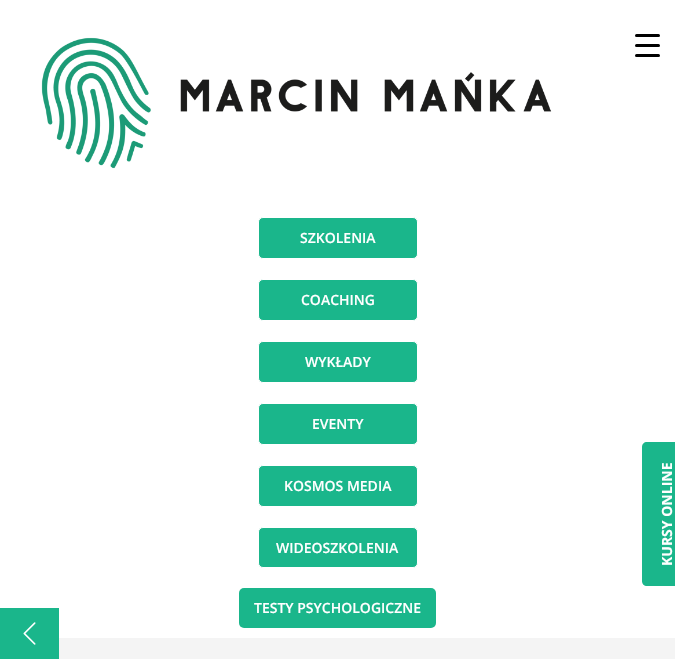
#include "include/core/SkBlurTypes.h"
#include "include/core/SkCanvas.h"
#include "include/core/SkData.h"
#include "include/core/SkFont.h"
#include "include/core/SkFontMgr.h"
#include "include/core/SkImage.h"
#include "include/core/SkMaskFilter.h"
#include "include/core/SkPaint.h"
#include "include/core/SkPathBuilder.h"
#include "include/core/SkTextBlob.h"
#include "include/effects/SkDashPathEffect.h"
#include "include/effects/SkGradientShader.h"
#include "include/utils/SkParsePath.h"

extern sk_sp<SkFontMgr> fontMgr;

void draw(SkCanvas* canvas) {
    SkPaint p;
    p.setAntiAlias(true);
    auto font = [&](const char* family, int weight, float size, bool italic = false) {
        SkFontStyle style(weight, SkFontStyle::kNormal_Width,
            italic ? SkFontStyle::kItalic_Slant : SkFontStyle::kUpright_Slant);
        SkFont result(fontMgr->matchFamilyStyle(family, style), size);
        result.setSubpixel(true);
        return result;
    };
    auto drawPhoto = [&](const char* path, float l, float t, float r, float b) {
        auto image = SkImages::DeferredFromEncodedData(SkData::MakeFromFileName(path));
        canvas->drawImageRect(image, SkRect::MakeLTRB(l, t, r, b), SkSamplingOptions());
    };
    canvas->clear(0xFFFFFFFF);
    p.setColor(0xFF000000);
    canvas->drawRoundRect(SkRect::MakeLTRB(635, 44, 660, 47), 1.5f, 1.5f, p);
    canvas->drawRoundRect(SkRect::MakeLTRB(635, 34, 660, 37), 1.5f, 1.5f, p);
    canvas->drawRoundRect(SkRect::MakeLTRB(635, 54, 660, 57), 1.5f, 1.5f, p);
    drawPhoto("media/1.png", 41, 37, 552, 169);
    p.setColor(0xFF1AB68B);
    canvas->drawRoundRect(SkRect::MakeLTRB(258.5f, 217.5f, 417.5f, 258.5f), 4.5f, 4.5f, p);
    p.setStyle(SkPaint::kStroke_Style);
    p.setStrokeWidth(1);
    p.setColor(0xFFFFFFFF);
    canvas->drawRoundRect(SkRect::MakeLTRB(258.5f, 217.5f, 417.5f, 258.5f), 4.5f, 4.5f, p);
    auto font1 = font("Open Sans", 600, 14);
    p.setStyle(SkPaint::kFill_Style);
    canvas->drawString("SZKOLENIA", 300, 243, font1, p);
    p.setColor(0xFF1AB68B);
    canvas->drawRoundRect(SkRect::MakeLTRB(258.5f, 279.5f, 417.5f, 320.5f), 4.5f, 4.5f, p);
    p.setStyle(SkPaint::kStroke_Style);
    p.setColor(0xFFFFFFFF);
    canvas->drawRoundRect(SkRect::MakeLTRB(258.5f, 279.5f, 417.5f, 320.5f), 4.5f, 4.5f, p);
    p.setStyle(SkPaint::kFill_Style);
    canvas->drawString("COACHING", 301, 305, font1, p);
    p.setColor(0xFF1AB68B);
    canvas->drawRoundRect(SkRect::MakeLTRB(258.5f, 341.5f, 417.5f, 382.5f), 4.5f, 4.5f, p);
    p.setStyle(SkPaint::kStroke_Style);
    p.setColor(0xFFFFFFFF);
    canvas->drawRoundRect(SkRect::MakeLTRB(258.5f, 341.5f, 417.5f, 382.5f), 4.5f, 4.5f, p);
    p.setStyle(SkPaint::kFill_Style);
    canvas->drawString("WYKŁADY", 305, 367, font1, p);
    p.setColor(0xFF1AB68B);
    canvas->drawRoundRect(SkRect::MakeLTRB(258.5f, 403.5f, 417.5f, 444.5f), 4.5f, 4.5f, p);
    p.setStyle(SkPaint::kStroke_Style);
    p.setColor(0xFFFFFFFF);
    canvas->drawRoundRect(SkRect::MakeLTRB(258.5f, 403.5f, 417.5f, 444.5f), 4.5f, 4.5f, p);
    p.setStyle(SkPaint::kFill_Style);
    canvas->drawString("EVENTY", 312, 429, font1, p);
    p.setColor(0xFF1AB68B);
    canvas->drawRoundRect(SkRect::MakeLTRB(258.5f, 465.5f, 417.5f, 506.5f), 4.5f, 4.5f, p);
    p.setStyle(SkPaint::kStroke_Style);
    p.setColor(0xFFFFFFFF);
    canvas->drawRoundRect(SkRect::MakeLTRB(258.5f, 465.5f, 417.5f, 506.5f), 4.5f, 4.5f, p);
    p.setStyle(SkPaint::kFill_Style);
    canvas->drawString("KOSMOS MEDIA", 284, 491, font1, p);
    p.setColor(0xFF1AB68B);
    canvas->drawRoundRect(SkRect::MakeLTRB(258.5f, 527.5f, 417.5f, 567.5f), 4.5f, 4.5f, p);
    p.setStyle(SkPaint::kStroke_Style);
    p.setColor(0xFFFFFFFF);
    canvas->drawRoundRect(SkRect::MakeLTRB(258.5f, 527.5f, 417.5f, 567.5f), 4.5f, 4.5f, p);
    p.setStyle(SkPaint::kFill_Style);
    canvas->drawString("WIDEOSZKOLENIA", 276, 553, font1, p);
    p.setColor(0xFF1AB68B);
    canvas->drawRoundRect(SkRect::MakeLTRB(239, 588, 436, 628), 5, 5, p);
    p.setColor(0xFFFFFFFF);
    canvas->drawString("TESTY PSYCHOLOGICZNE", 254, 613, font1, p);
    p.setColor(0xFF1AB68B);
    canvas->drawRect(SkRect::MakeLTRB(0, 608, 59, 659), p);
    drawPhoto("media/2.png", 23, 622, 36, 645);
    p.setColor(0xFFF4F4F4);
    canvas->drawRect(SkRect::MakeLTRB(59, 638, 675, 659), p);
    p.setColor(0xFF1AB68B);
    canvas->drawPath(SkPathBuilder().moveTo(642, 581).lineTo(642, 447).cubicTo(642, 444, 644, 442, 647, 442).lineTo(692, 442).lineTo(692, 586).lineTo(647, 586).cubicTo(644, 586, 642, 584, 642, 581).close().detach(), p);
    auto font2 = font("Open Sans", 700, 14);
    p.setColor(0xFFFFFFFF);
    canvas->save();
    canvas->rotate(-90, 672, 566);
    canvas->drawString("KURSY ONLINE", 672, 566, font2, p);
    canvas->restore();
}
